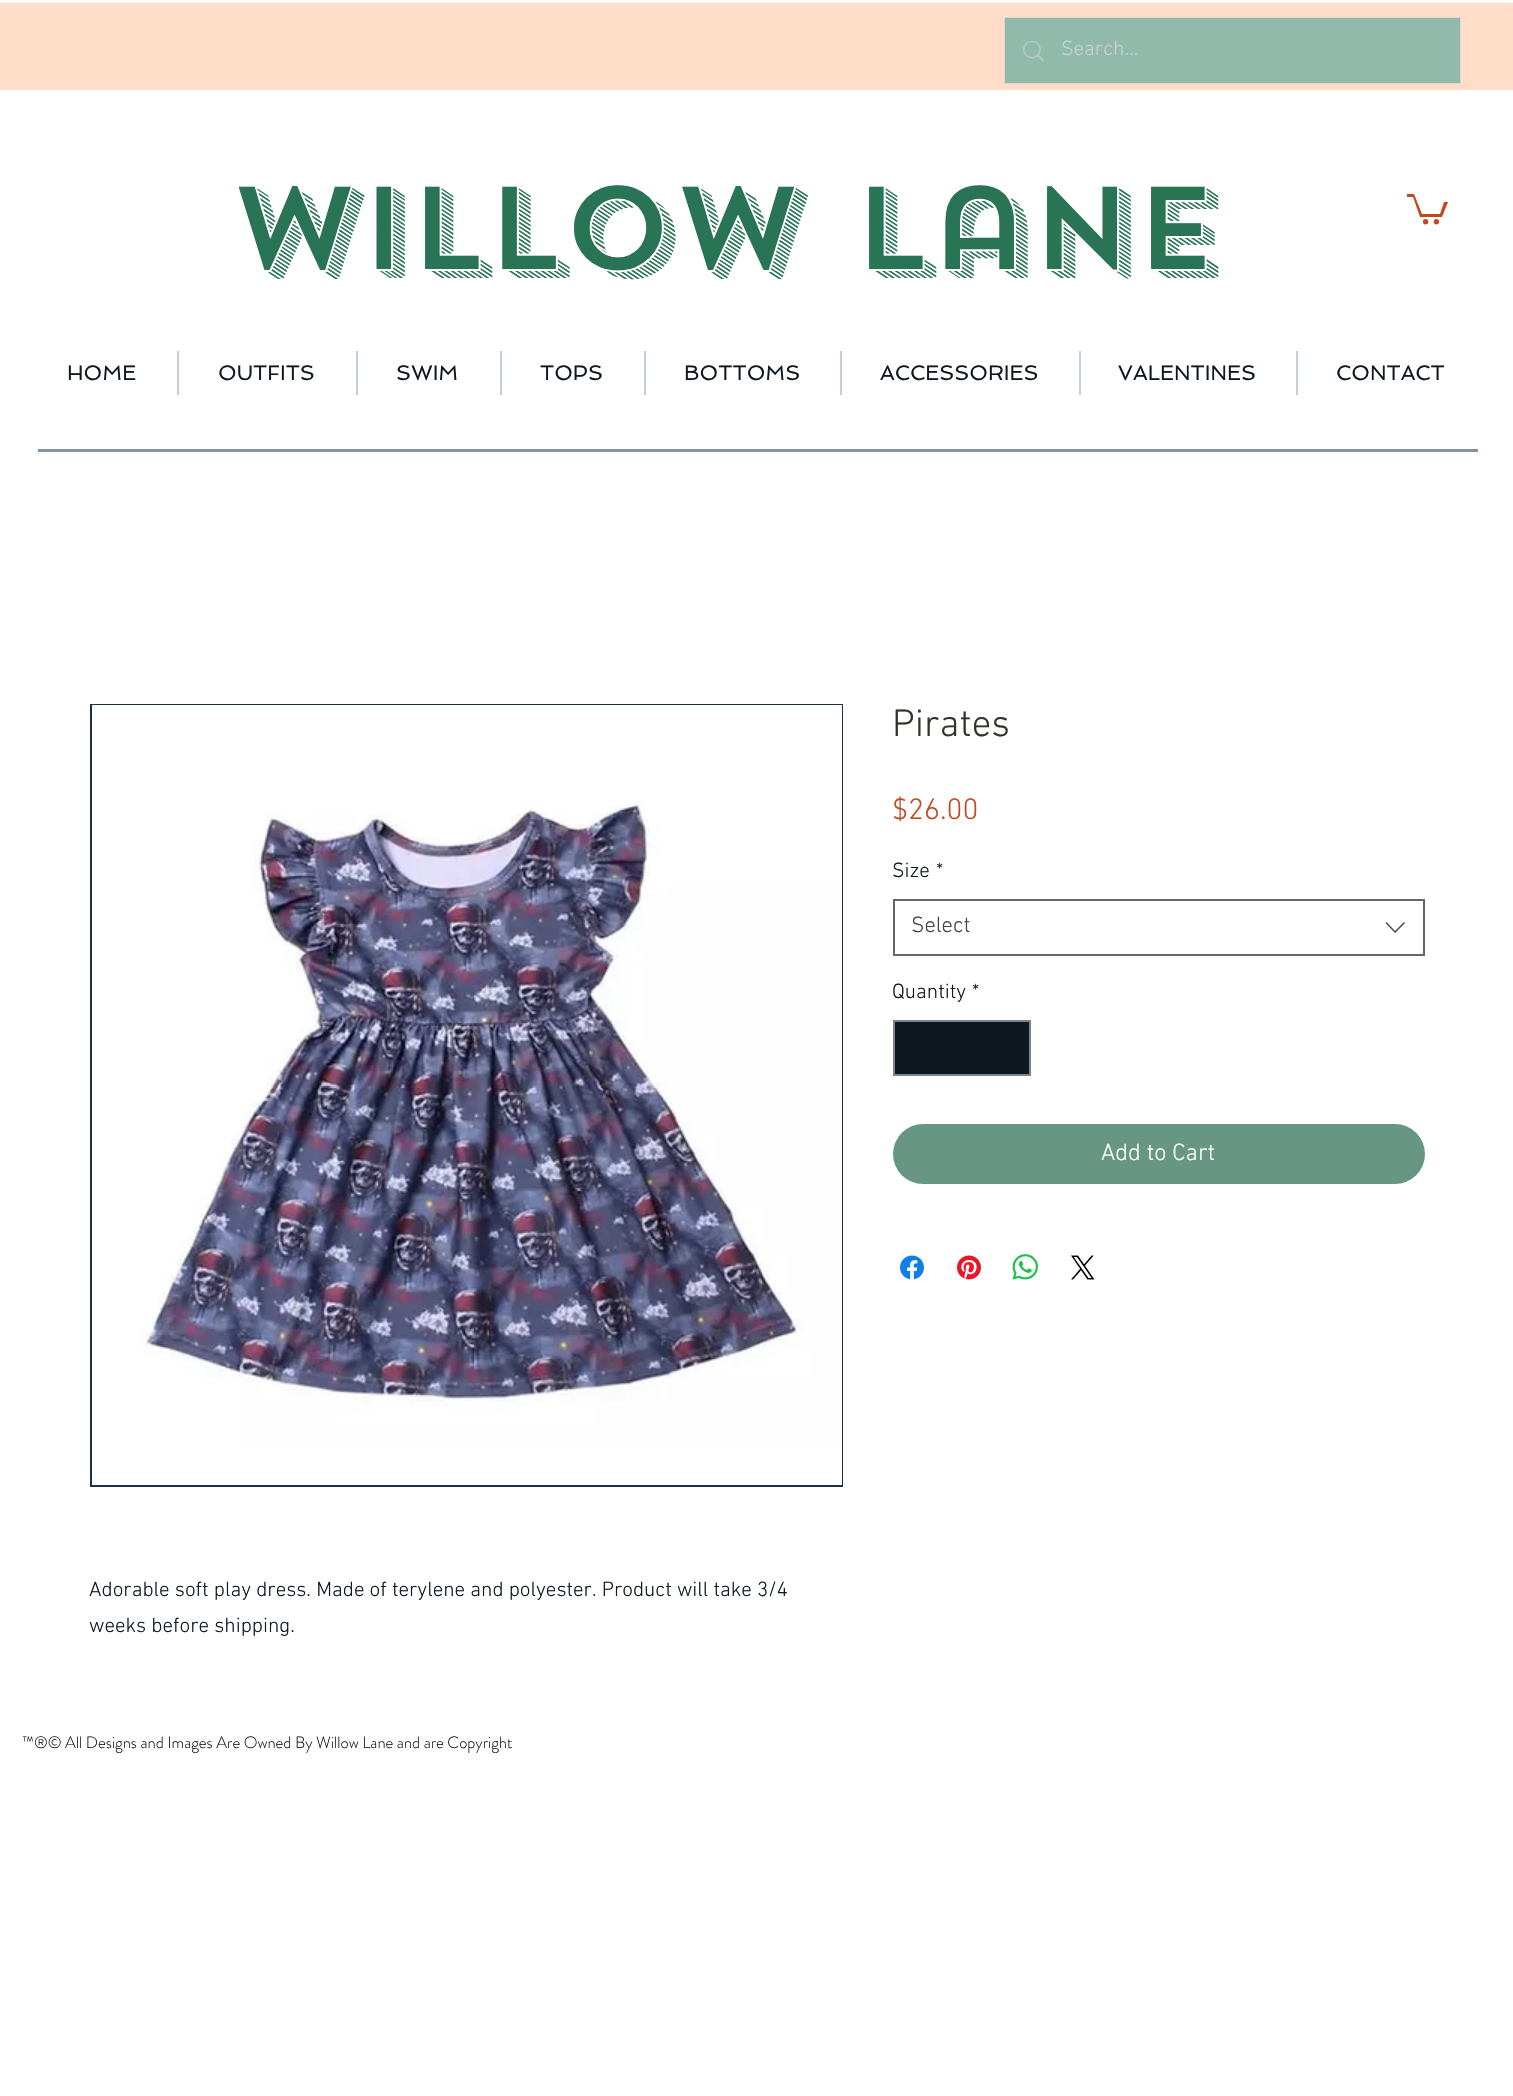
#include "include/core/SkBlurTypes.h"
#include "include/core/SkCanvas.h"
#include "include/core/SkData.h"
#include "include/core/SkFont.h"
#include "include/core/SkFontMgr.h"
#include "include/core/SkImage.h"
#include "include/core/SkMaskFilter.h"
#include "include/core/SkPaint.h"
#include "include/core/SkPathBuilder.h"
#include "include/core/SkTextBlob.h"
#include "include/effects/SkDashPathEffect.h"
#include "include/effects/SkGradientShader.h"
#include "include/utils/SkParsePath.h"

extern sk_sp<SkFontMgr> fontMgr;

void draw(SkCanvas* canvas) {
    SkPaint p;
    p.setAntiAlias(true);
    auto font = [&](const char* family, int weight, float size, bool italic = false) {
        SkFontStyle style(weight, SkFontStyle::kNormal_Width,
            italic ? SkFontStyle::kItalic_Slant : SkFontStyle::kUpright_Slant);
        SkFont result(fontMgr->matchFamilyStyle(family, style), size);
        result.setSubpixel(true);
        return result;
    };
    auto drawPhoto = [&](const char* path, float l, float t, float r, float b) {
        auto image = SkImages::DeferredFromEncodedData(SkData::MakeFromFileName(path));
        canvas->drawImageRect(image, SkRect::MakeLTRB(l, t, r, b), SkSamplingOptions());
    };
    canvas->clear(0xFFFFFFFF);
    p.setColor(0xFFFFDDC9);
    canvas->drawRect(SkRect::MakeLTRB(0, 3, 1513, 90), p);
    p.setStyle(SkPaint::kStroke_Style);
    p.setStrokeWidth(2);
    p.setColor(0xFFDCD5D3);
    canvas->drawRect(SkRect::MakeLTRB(1005, 18, 1460, 83), p);
    p.setStyle(SkPaint::kFill_Style);
    p.setColor(0xFF92BAAA);
    canvas->drawRect(SkRect::MakeLTRB(1005, 18, 1460, 83), p);
    drawPhoto("media/1.png", 1023, 41, 1044, 62);
    auto font1 = font("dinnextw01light", 300, 21);
    p.setColor(0xFFC5D0D9);
    canvas->drawString("Search...", 1061, 55, font1, p);
    auto font2 = font("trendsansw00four", 500, 117);
    p.setColor(0xFF2A7456);
    canvas->drawString("Willow Lane", 230, 269, font2, p);
    p.setColor(0xFFC14920);
    canvas->drawPath(SkPathBuilder().moveTo(1448, 202).lineTo(1442, 217).lineTo(1420, 217).lineTo(1413, 197).lineTo(1407, 197).lineTo(1407, 194).lineTo(1414, 194).lineTo(1422, 214).lineTo(1440, 214).lineTo(1444, 202).detach(), p);
    canvas->drawCircle(1436.4f, 221.8f, 2.7f, p);
    canvas->drawCircle(1425.6f, 221.8f, 2.7f, p);
    auto font3 = font("Spinnaker", 400, 21);
    p.setColor(0xFF0E1821);
    canvas->drawString("HOME", 67, 380, font3, p);
    p.setColor(0xFFC5D0D9);
    canvas->drawRect(SkRect::MakeLTRB(177, 351, 179, 395), p);
    p.setColor(0xFF0E1821);
    canvas->drawString("OUTFITS", 218, 380, font3, p);
    p.setColor(0xFFC5D0D9);
    canvas->drawRect(SkRect::MakeLTRB(356, 351, 358, 395), p);
    p.setColor(0xFF0E1821);
    canvas->drawString("SWIM", 396, 380, font3, p);
    p.setColor(0xFFC5D0D9);
    canvas->drawRect(SkRect::MakeLTRB(500, 351, 502, 395), p);
    p.setColor(0xFF0E1821);
    canvas->drawString("TOPS", 540, 380, font3, p);
    p.setColor(0xFFC5D0D9);
    canvas->drawRect(SkRect::MakeLTRB(644, 351, 646, 395), p);
    p.setColor(0xFF0E1821);
    canvas->drawString("BOTTOMS", 684, 380, font3, p);
    p.setColor(0xFFC5D0D9);
    canvas->drawRect(SkRect::MakeLTRB(840, 351, 842, 395), p);
    p.setColor(0xFF0E1821);
    canvas->drawString("ACCESSORIES", 880, 380, font3, p);
    p.setColor(0xFFC5D0D9);
    canvas->drawRect(SkRect::MakeLTRB(1079, 351, 1081, 395), p);
    p.setColor(0xFF0E1821);
    canvas->drawString("VALENTINES", 1118, 380, font3, p);
    p.setColor(0xFFC5D0D9);
    canvas->drawRect(SkRect::MakeLTRB(1296, 351, 1298, 395), p);
    p.setColor(0xFF0E1821);
    canvas->drawString("CONTACT", 1336, 380, font3, p);
    p.setColor(0xFF8293A1);
    canvas->drawRect(SkRect::MakeLTRB(38, 449, 1478, 452), p);
    auto font4 = font("dinnextw01light", 300, 39);
    p.setColor(0xFF323328);
    canvas->drawString("Pirates", 892, 736, font4, p);
    auto font5 = font("dinnextw01light", 300, 30);
    p.setColor(0xFFC14920);
    canvas->drawString("$26.00", 892, 819, font5, p);
    p.setColor(0xFF0E1821);
    canvas->drawString("Size", 892, 877, font1, p);
    canvas->drawString("*", 936, 877, font1, p);
    p.setStyle(SkPaint::kStroke_Style);
    p.setColor(0xFF666666);
    canvas->drawRect(SkRect::MakeLTRB(894, 900, 1424, 955), p);
    auto font6 = font("dinnextw01light", 300, 22.5f);
    p.setStyle(SkPaint::kFill_Style);
    p.setColor(0xFF444444);
    canvas->drawString("Select", 911, 932, font6, p);
    canvas->drawPath(SkPathBuilder(SkPathFillType::kEvenOdd).moveTo(1404, 922).lineTo(1405, 923).lineTo(1395, 933).lineTo(1385.5f, 923).lineTo(1386.5f, 922).lineTo(1395, 931).close().detach(), p);
    p.setColor(0xFF0E1821);
    canvas->drawString("Quantity", 892, 998, font1, p);
    canvas->drawString("*", 972, 998, font1, p);
    canvas->drawRect(SkRect::MakeLTRB(894, 1021, 1030, 1075), p);
    p.setStyle(SkPaint::kStroke_Style);
    p.setColor(0xFF7C868F);
    canvas->drawRect(SkRect::MakeLTRB(894, 1021, 1030, 1075), p);
    p.setStyle(SkPaint::kFill_Style);
    p.setColor(0xFF679783);
    canvas->drawRoundRect(SkRect::MakeLTRB(893, 1124, 1425, 1184), 30, 30, p);
    auto font7 = font("dinnextw01light", 300, 24);
    p.setColor(0xFFFFFFFF);
    canvas->drawString("Add to Cart", 1101, 1160, font7, p);
    drawPhoto("media/2.png", 900, 1255, 924, 1280);
    drawPhoto("media/3.png", 957, 1255, 981, 1280);
    drawPhoto("media/4.png", 1012, 1254, 1038, 1280);
    drawPhoto("media/5.png", 1071, 1255, 1095, 1280);
    p.setStyle(SkPaint::kStroke_Style);
    p.setColor(0xFF1C3142);
    canvas->drawRect(SkRect::MakeLTRB(91, 705, 842, 1486), p);
    drawPhoto("media/6.png", 92, 705, 842, 1485);
    p.setStyle(SkPaint::kFill_Style);
    p.setColor(0xFF0E1821);
    canvas->drawString("Adorable soft play dress. Made of terylene and polyester. Product will take 3/4", 89, 1596, font1, p);
    canvas->drawString("weeks before shipping.", 89, 1632, font1, p);
    auto font8 = font("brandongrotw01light", 300, 16.5f);
    canvas->drawString("™®© All Designs and Images Are Owned By Willow Lane and are Copyright", 22, 1748, font8, p);
}
